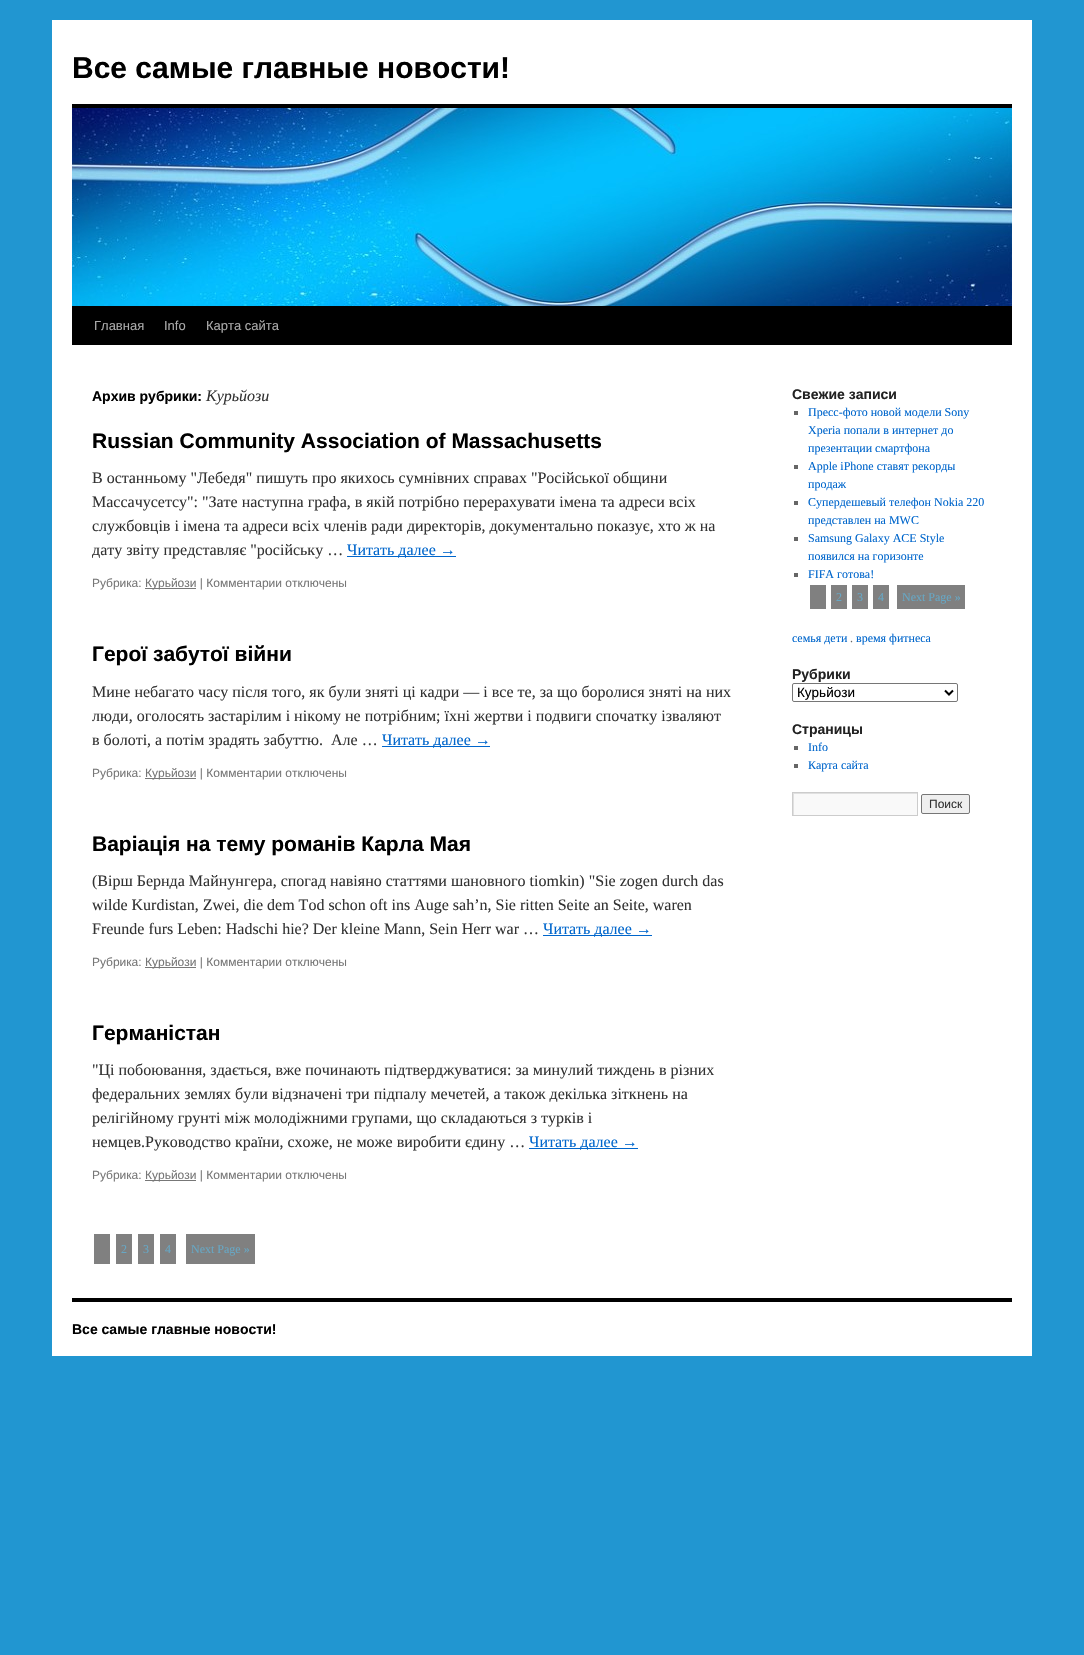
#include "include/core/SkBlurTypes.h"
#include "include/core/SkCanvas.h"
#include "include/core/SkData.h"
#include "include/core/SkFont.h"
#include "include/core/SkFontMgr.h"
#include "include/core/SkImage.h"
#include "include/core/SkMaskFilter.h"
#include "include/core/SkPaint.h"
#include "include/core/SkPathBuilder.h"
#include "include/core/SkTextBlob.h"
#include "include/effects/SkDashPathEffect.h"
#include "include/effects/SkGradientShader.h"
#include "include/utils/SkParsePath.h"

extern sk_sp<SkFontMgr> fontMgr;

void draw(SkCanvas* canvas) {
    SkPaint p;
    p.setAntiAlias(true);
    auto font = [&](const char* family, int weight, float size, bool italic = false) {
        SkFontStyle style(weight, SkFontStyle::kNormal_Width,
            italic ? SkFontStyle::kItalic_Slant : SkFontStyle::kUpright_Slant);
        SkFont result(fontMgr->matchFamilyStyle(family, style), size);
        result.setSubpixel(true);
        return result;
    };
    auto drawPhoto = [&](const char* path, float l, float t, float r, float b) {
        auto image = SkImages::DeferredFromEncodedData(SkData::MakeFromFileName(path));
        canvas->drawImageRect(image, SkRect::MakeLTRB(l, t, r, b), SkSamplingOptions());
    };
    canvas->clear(0xFF2196D1);
    p.setColor(0xFFFFFFFF);
    canvas->drawRect(SkRect::MakeLTRB(52, 20, 1032, 1356), p);
    auto font1 = font("Liberation Sans", 700, 30);
    p.setColor(0xFF000000);
    canvas->drawString("Все самые главные новости!", 72, 78, font1, p);
    canvas->drawRect(SkRect::MakeLTRB(72, 104, 1012, 108), p);
    canvas->drawRect(SkRect::MakeLTRB(72, 306, 1012, 345), p);
    drawPhoto("media/1.png", 72, 108, 1012, 306);
    auto font2 = font("Liberation Sans", 400, 13);
    p.setColor(0xFFAAAAAA);
    {
        const struct { const char* s; float x, y; } items[] = {
            {"Главная", 94, 330},
            {"Info", 164, 330},
            {"Карта сайта", 206, 330},
        };
        for (auto [s, x, y] : items) {
            canvas->drawString(s, x, y, font2, p);
        }
    }
    auto font3 = font("Liberation Sans", 700, 14);
    p.setColor(0xFF000000);
    canvas->drawString("Архив рубрики:", 92, 401, font3, p);
    auto font4 = font("Liberation Serif", 400, 16, true);
    p.setColor(0xFF333333);
    canvas->drawString("Курьйози", 206, 401, font4, p);
    auto font5 = font("Liberation Sans", 700, 21);
    p.setColor(0xFF000000);
    canvas->drawString("Russian Community Association of Massachusetts", 92, 448, font5, p);
    auto font6 = font("Liberation Serif", 400, 16);
    p.setColor(0xFF333333);
    {
        const struct { const char* s; float x, y; } items[] = {
            {"В останньому \"Лебедя\" пишуть про якихось сумнівних справах \"Російської общини", 92, 483},
            {"Массачусетсу\": \"Зате наступна графа, в якій потрібно перерахувати імена та адреси всіх", 92, 507},
            {"службовців і імена та адреси всіх членів ради директорів, документально показує, хто ж на", 92, 531},
            {"дату звіту представляє \"російську …", 92, 555},
        };
        for (auto [s, x, y] : items) {
            canvas->drawString(s, x, y, font6, p);
        }
    }
    p.setColor(0xFF0066CC);
    canvas->drawRect(SkRect::MakeLTRB(347, 556, 456, 557), p);
    canvas->drawString("Читать далее →", 347, 555, font6, p);
    auto font7 = font("Liberation Sans", 400, 12);
    p.setColor(0xFF777777);
    canvas->drawString("Рубрика:", 92, 587, font7, p);
    canvas->drawRect(SkRect::MakeLTRB(145, 588, 196, 589), p);
    canvas->drawString("Курьйози | Комментарии отключены", 145, 587, font7, p);
    p.setColor(0xFF000000);
    canvas->drawString("Герої забутої війни", 92, 661, font5, p);
    p.setColor(0xFF333333);
    {
        const struct { const char* s; float x, y; } items[] = {
            {"Мине небагато часу після того, як були зняті ці кадри — і все те, за що боролися зняті на них", 92, 697},
            {"люди, оголосять застарілим і нікому не потрібним; їхні жертви і подвиги спочатку ізваляют", 92, 721},
            {"в болоті, а потім зрадять забуттю.  Але …", 92, 745},
        };
        for (auto [s, x, y] : items) {
            canvas->drawString(s, x, y, font6, p);
        }
    }
    p.setColor(0xFF0066CC);
    canvas->drawRect(SkRect::MakeLTRB(382, 746, 490, 747), p);
    canvas->drawString("Читать далее →", 382, 745, font6, p);
    p.setColor(0xFF777777);
    canvas->drawString("Рубрика:", 92, 777, font7, p);
    canvas->drawRect(SkRect::MakeLTRB(145, 778, 196, 779), p);
    canvas->drawString("Курьйози | Комментарии отключены", 145, 777, font7, p);
    p.setColor(0xFF000000);
    canvas->drawString("Варіація на тему романів Карла Мая", 92, 851, font5, p);
    p.setColor(0xFF333333);
    {
        const struct { const char* s; float x, y; } items[] = {
            {"(Вірш Бернда Майнунгера, спогад навіяно статтями шановного tiomkin) \"Sie zogen durch das", 92, 886},
            {"wilde Kurdistan, Zwei, die dem Tod schon oft ins Auge sah’n, Sie ritten Seite an Seite, waren", 92, 910},
            {"Freunde furs Leben: Hadschi hie? Der kleine Mann, Sein Herr war …", 92, 934},
        };
        for (auto [s, x, y] : items) {
            canvas->drawString(s, x, y, font6, p);
        }
    }
    p.setColor(0xFF0066CC);
    canvas->drawRect(SkRect::MakeLTRB(543, 935, 652, 936), p);
    canvas->drawString("Читать далее →", 543, 934, font6, p);
    p.setColor(0xFF777777);
    canvas->drawString("Рубрика:", 92, 966, font7, p);
    canvas->drawRect(SkRect::MakeLTRB(145, 967, 196, 968), p);
    canvas->drawString("Курьйози | Комментарии отключены", 145, 966, font7, p);
    p.setColor(0xFF000000);
    canvas->drawString("Германістан", 92, 1040, font5, p);
    p.setColor(0xFF333333);
    {
        const struct { const char* s; float x, y; } items[] = {
            {"\"Ці побоювання, здається, вже починають підтверджуватися: за минулий тиждень в різних", 92, 1075},
            {"федеральних землях були відзначені три підпалу мечетей, а також декілька зіткнень на", 92, 1099},
            {"релігійному грунті між молодіжними групами, що складаються з турків і", 92, 1123},
            {"немцев.Руководство країни, схоже, не може виробити єдину …", 92, 1147},
        };
        for (auto [s, x, y] : items) {
            canvas->drawString(s, x, y, font6, p);
        }
    }
    p.setColor(0xFF0066CC);
    canvas->drawRect(SkRect::MakeLTRB(529, 1148, 638, 1149), p);
    canvas->drawString("Читать далее →", 529, 1147, font6, p);
    p.setColor(0xFF777777);
    canvas->drawString("Рубрика:", 92, 1179, font7, p);
    canvas->drawRect(SkRect::MakeLTRB(145, 1180, 196, 1181), p);
    canvas->drawString("Курьйози | Комментарии отключены", 145, 1179, font7, p);
    p.setColor(0xFF808080);
    canvas->drawRect(SkRect::MakeLTRB(94, 1234, 110, 1264), p);
    canvas->drawRect(SkRect::MakeLTRB(116, 1234, 132, 1264), p);
    auto font8 = font("Liberation Serif", 400, 12);
    p.setColor(0xFF67A7C4);
    canvas->drawString("2", 121, 1253, font8, p);
    p.setColor(0xFF808080);
    canvas->drawRect(SkRect::MakeLTRB(138, 1234, 154, 1264), p);
    p.setColor(0xFF67A7C4);
    canvas->drawString("3", 143, 1253, font8, p);
    p.setColor(0xFF808080);
    canvas->drawRect(SkRect::MakeLTRB(160, 1234, 176, 1264), p);
    p.setColor(0xFF67A7C4);
    canvas->drawString("4", 165, 1253, font8, p);
    p.setColor(0xFF808080);
    canvas->drawRect(SkRect::MakeLTRB(186, 1234, 255, 1264), p);
    p.setColor(0xFF67A7C4);
    canvas->drawString("Next Page »", 191, 1253, font8, p);
    p.setColor(0xFF222222);
    canvas->drawString("Свежие записи", 792, 399, font3, p);
    p.setColor(0xFF666666);
    canvas->drawRect(SkRect::MakeLTRB(794, 411, 798, 415), p);
    p.setColor(0xFF0066CC);
    {
        const struct { const char* s; float x, y; } items[] = {
            {"Пресс-фото новой модели Sony", 808, 416},
            {"Xperia попали в интернет до", 808, 434},
            {"презентации смартфона", 808, 452},
        };
        for (auto [s, x, y] : items) {
            canvas->drawString(s, x, y, font8, p);
        }
    }
    p.setColor(0xFF666666);
    canvas->drawRect(SkRect::MakeLTRB(794, 465, 798, 469), p);
    p.setColor(0xFF0066CC);
    canvas->drawString("Apple iPhone ставят рекорды", 808, 470, font8, p);
    canvas->drawString("продаж", 808, 488, font8, p);
    p.setColor(0xFF666666);
    canvas->drawRect(SkRect::MakeLTRB(794, 501, 798, 505), p);
    p.setColor(0xFF0066CC);
    canvas->drawString("Супердешевый телефон Nokia 220", 808, 506, font8, p);
    canvas->drawString("представлен на MWC", 808, 524, font8, p);
    p.setColor(0xFF666666);
    canvas->drawRect(SkRect::MakeLTRB(794, 537, 798, 541), p);
    p.setColor(0xFF0066CC);
    canvas->drawString("Samsung Galaxy ACE Style", 808, 542, font8, p);
    canvas->drawString("появился на горизонте", 808, 560, font8, p);
    p.setColor(0xFF666666);
    canvas->drawRect(SkRect::MakeLTRB(794, 573, 798, 577), p);
    p.setColor(0xFF0066CC);
    canvas->drawString("FIFA готова!", 808, 578, font8, p);
    p.setColor(0xFF808080);
    canvas->drawRect(SkRect::MakeLTRB(810, 585, 826, 609), p);
    canvas->drawRect(SkRect::MakeLTRB(831, 585, 847, 609), p);
    p.setColor(0xFF67A7C4);
    canvas->drawString("2", 836, 601, font8, p);
    p.setColor(0xFF808080);
    canvas->drawRect(SkRect::MakeLTRB(852, 585, 868, 609), p);
    p.setColor(0xFF67A7C4);
    canvas->drawString("3", 857, 601, font8, p);
    p.setColor(0xFF808080);
    canvas->drawRect(SkRect::MakeLTRB(873, 585, 889, 609), p);
    p.setColor(0xFF67A7C4);
    canvas->drawString("4", 878, 601, font8, p);
    p.setColor(0xFF808080);
    canvas->drawRect(SkRect::MakeLTRB(897, 585, 965, 609), p);
    p.setColor(0xFF67A7C4);
    canvas->drawString("Next Page »", 902, 601, font8, p);
    p.setColor(0xFF0066CC);
    canvas->drawString("семья дети", 792, 642, font8, p);
    p.setColor(0xFF666666);
    canvas->drawString(".", 850, 642, font8, p);
    p.setColor(0xFF0066CC);
    canvas->drawString("время фитнеса", 856, 642, font8, p);
    p.setColor(0xFF222222);
    canvas->drawString("Рубрики", 792, 679, font3, p);
    p.setStyle(SkPaint::kStroke_Style);
    p.setStrokeWidth(1);
    p.setColor(0xFF767676);
    canvas->drawRoundRect(SkRect::MakeLTRB(792.5f, 683.5f, 957.5f, 701.5f), 1.5f, 1.5f, p);
    p.setStrokeWidth(2);
    p.setColor(0xFF000000);
    canvas->drawPath(SkPathBuilder().moveTo(945, 690.5f).lineTo(949, 694.5f).lineTo(953, 690.5f).detach(), p);
    auto font9 = font("Liberation Sans", 400, 13.5f);
    p.setStyle(SkPaint::kFill_Style);
    canvas->drawString("Курьйози", 797, 697, font9, p);
    p.setColor(0xFF222222);
    canvas->drawString("Страницы", 792, 734, font3, p);
    p.setColor(0xFF666666);
    canvas->drawRect(SkRect::MakeLTRB(794, 746, 798, 750), p);
    p.setColor(0xFF0066CC);
    canvas->drawString("Info", 808, 751, font8, p);
    p.setColor(0xFF666666);
    canvas->drawRect(SkRect::MakeLTRB(794, 764, 798, 768), p);
    p.setColor(0xFF0066CC);
    canvas->drawString("Карта сайта", 808, 769, font8, p);
    p.setColor(0xFFF9F9F9);
    canvas->drawRect(SkRect::MakeLTRB(794, 794, 917, 815), p);
    canvas->save();
    canvas->clipRect(SkRect::MakeLTRB(793, 793, 917, 815));
    p.setColor(0xFFE0E0E0);
    canvas->drawPath(SkPathBuilder(SkPathFillType::kEvenOdd).moveTo(694, 694).lineTo(1016, 694).lineTo(1016, 914).lineTo(694, 914).close().moveTo(794, 794).lineTo(918, 794).lineTo(918, 816).lineTo(794, 816).close().detach(), p);
    canvas->restore();
    p.setStyle(SkPaint::kStroke_Style);
    p.setStrokeWidth(1);
    p.setColor(0xFFCCCCCC);
    canvas->drawRect(SkRect::MakeLTRB(792.5f, 792.5f, 917.5f, 815.5f), p);
    p.setStyle(SkPaint::kFill_Style);
    p.setColor(0xFFEFEFEF);
    canvas->drawRoundRect(SkRect::MakeLTRB(921.5f, 794.5f, 969.5f, 813.5f), 1.5f, 1.5f, p);
    p.setStyle(SkPaint::kStroke_Style);
    p.setColor(0xFF767676);
    canvas->drawRoundRect(SkRect::MakeLTRB(921.5f, 794.5f, 969.5f, 813.5f), 1.5f, 1.5f, p);
    p.setStyle(SkPaint::kFill_Style);
    p.setColor(0xFF333333);
    canvas->drawString("Поиск", 929, 808, font7, p);
    p.setColor(0xFF000000);
    canvas->drawRect(SkRect::MakeLTRB(72, 1298, 1012, 1302), p);
    canvas->drawString("Все самые главные новости!", 72, 1334, font3, p);
}
